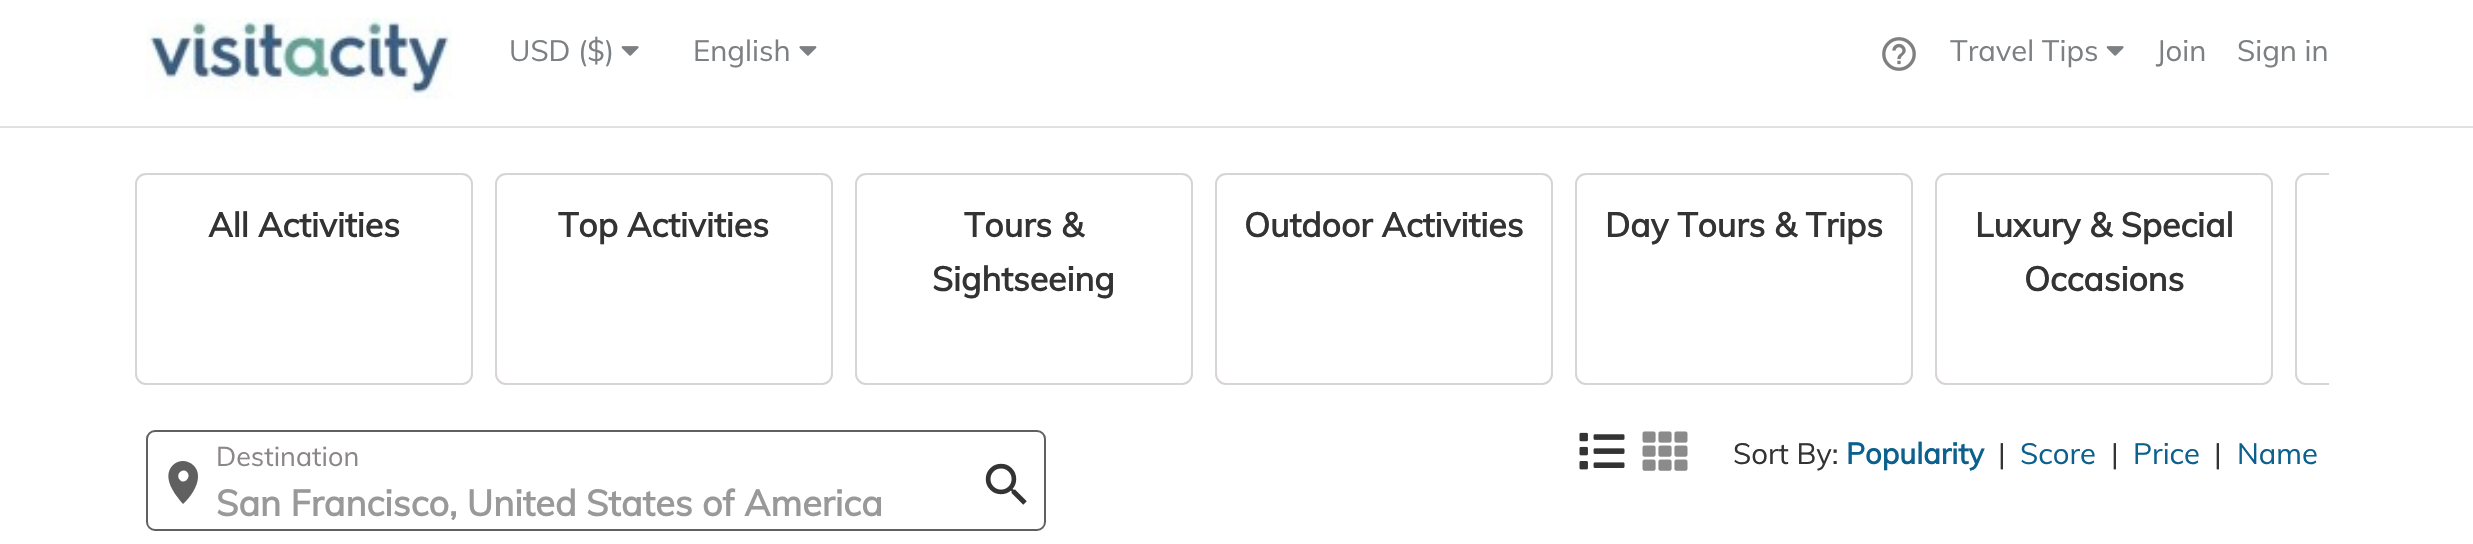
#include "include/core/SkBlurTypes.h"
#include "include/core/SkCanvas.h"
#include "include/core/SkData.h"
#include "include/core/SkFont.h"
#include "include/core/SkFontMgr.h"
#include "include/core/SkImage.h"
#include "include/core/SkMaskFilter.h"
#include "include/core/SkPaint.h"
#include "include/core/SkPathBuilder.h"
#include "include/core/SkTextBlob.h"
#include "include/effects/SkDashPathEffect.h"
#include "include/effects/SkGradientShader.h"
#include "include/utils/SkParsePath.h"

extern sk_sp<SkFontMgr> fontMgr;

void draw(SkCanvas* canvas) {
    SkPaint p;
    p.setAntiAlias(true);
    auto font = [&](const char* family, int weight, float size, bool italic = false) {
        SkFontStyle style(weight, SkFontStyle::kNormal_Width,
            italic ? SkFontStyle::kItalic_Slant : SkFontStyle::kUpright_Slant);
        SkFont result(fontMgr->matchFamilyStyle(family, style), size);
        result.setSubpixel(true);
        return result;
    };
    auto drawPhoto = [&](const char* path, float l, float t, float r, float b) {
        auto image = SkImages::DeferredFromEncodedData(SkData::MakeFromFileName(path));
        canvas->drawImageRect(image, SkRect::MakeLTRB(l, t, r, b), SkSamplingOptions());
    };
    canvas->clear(0xFFFFFFFF);
    drawPhoto("media/1.png", 146, 18, 452, 99);
    auto font1 = font("Muli", 400, 29.25f);
    p.setColor(0xFF7C8082);
    canvas->drawString("USD ($)", 509, 61, font1, p);
    drawPhoto("media/2.png", 621, 46, 639, 56);
    canvas->drawString("English", 693, 61, font1, p);
    drawPhoto("media/3.png", 799, 46, 817, 56);
    drawPhoto("media/4.png", 1882, 37, 1916, 71);
    canvas->drawString("Travel Tips", 1950, 61, font1, p);
    drawPhoto("media/2.png", 2106, 46, 2124, 56);
    canvas->drawString("Join", 2156, 61, font1, p);
    canvas->drawString("Sign in", 2237, 61, font1, p);
    p.setColor(0xFFE0E1E5);
    canvas->drawRect(SkRect::MakeLTRB(0, 126, 2473, 128), p);
    p.setStyle(SkPaint::kStroke_Style);
    p.setStrokeWidth(2);
    p.setColor(0xFFD7D4D2);
    canvas->drawRoundRect(SkRect::MakeLTRB(136, 174, 472, 384), 10, 10, p);
    auto font2 = font("Muli", 700, 33.75f);
    p.setStyle(SkPaint::kFill_Style);
    p.setColor(0xFF333333);
    canvas->drawString("All Activities", 208, 237, font2, p);
    p.setStyle(SkPaint::kStroke_Style);
    p.setColor(0xFFD7D4D2);
    canvas->drawRoundRect(SkRect::MakeLTRB(496, 174, 832, 384), 10, 10, p);
    p.setStyle(SkPaint::kFill_Style);
    p.setColor(0xFF333333);
    canvas->drawString("Top Activities", 558, 237, font2, p);
    p.setStyle(SkPaint::kStroke_Style);
    p.setColor(0xFFD7D4D2);
    canvas->drawRoundRect(SkRect::MakeLTRB(856, 174, 1192, 384), 10, 10, p);
    p.setStyle(SkPaint::kFill_Style);
    p.setColor(0xFF333333);
    canvas->drawString("Tours &", 964, 237, font2, p);
    canvas->drawString("Sightseeing", 932, 291, font2, p);
    p.setStyle(SkPaint::kStroke_Style);
    p.setColor(0xFFD7D4D2);
    canvas->drawRoundRect(SkRect::MakeLTRB(1216, 174, 1552, 384), 10, 10, p);
    p.setStyle(SkPaint::kFill_Style);
    p.setColor(0xFF333333);
    canvas->drawString("Outdoor Activities", 1244, 237, font2, p);
    p.setStyle(SkPaint::kStroke_Style);
    p.setColor(0xFFD7D4D2);
    canvas->drawRoundRect(SkRect::MakeLTRB(1576, 174, 1912, 384), 10, 10, p);
    p.setStyle(SkPaint::kFill_Style);
    p.setColor(0xFF333333);
    canvas->drawString("Day Tours & Trips", 1605, 237, font2, p);
    p.setStyle(SkPaint::kStroke_Style);
    p.setColor(0xFFD7D4D2);
    canvas->drawRoundRect(SkRect::MakeLTRB(1936, 174, 2272, 384), 10, 10, p);
    p.setStyle(SkPaint::kFill_Style);
    p.setColor(0xFF333333);
    canvas->drawString("Luxury & Special", 1975, 237, font2, p);
    canvas->drawString("Occasions", 2024, 291, font2, p);
    canvas->save();
    canvas->clipRect(SkRect::MakeLTRB(113, 128, 2329, 385));
    p.setStyle(SkPaint::kStroke_Style);
    p.setColor(0xFFD7D4D2);
    canvas->drawRoundRect(SkRect::MakeLTRB(2296, 174, 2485, 384), 10, 10, p);
    canvas->restore();
    p.setColor(0xFF606060);
    canvas->drawRoundRect(SkRect::MakeLTRB(147, 431, 1045, 530), 8, 8, p);
    auto font3 = font("Muli", 400, 27);
    p.setStyle(SkPaint::kFill_Style);
    p.setColor(0xFF8C8787);
    canvas->drawString("Destination", 216, 466, font3, p);
    p.setColor(0xFF606060);
    canvas->drawPath(SkPathBuilder().moveTo(180, 480).cubicTo(184, 485, 192, 477, 187, 472).cubicTo(182, 467, 175, 475, 180, 480).close().moveTo(173, 465).cubicTo(182, 456, 199, 463, 198, 477).cubicTo(198, 486, 190, 498, 183, 504).cubicTo(175, 495, 161, 477, 173, 465).close().detach(), p);
    auto font4 = font("Muli", 700, 36);
    p.setColor(0xFF999999);
    canvas->drawString("San Francisco, United States of America", 216, 516, font4, p);
    drawPhoto("media/5.png", 985, 463, 1027, 505);
    drawPhoto("media/6.png", 1579, 432, 1625, 470);
    drawPhoto("media/7.png", 1642, 431, 1688, 471);
    p.setColor(0xFF333333);
    canvas->drawString("Sort By:", 1733, 464, font1, p);
    auto font5 = font("Muli", 700, 29.25f);
    p.setColor(0xFF0C608E);
    canvas->drawString("Popularity", 1846, 464, font5, p);
    p.setColor(0xFF333333);
    canvas->drawString("|", 1998, 464, font1, p);
    p.setColor(0xFF0C608E);
    canvas->drawString("Score", 2020, 464, font1, p);
    p.setColor(0xFF333333);
    canvas->drawString("|", 2111, 464, font1, p);
    p.setColor(0xFF0C608E);
    canvas->drawString("Price", 2133, 464, font1, p);
    p.setColor(0xFF333333);
    canvas->drawString("|", 2214, 464, font1, p);
    p.setColor(0xFF0C608E);
    canvas->drawString("Name", 2237, 464, font1, p);
}
